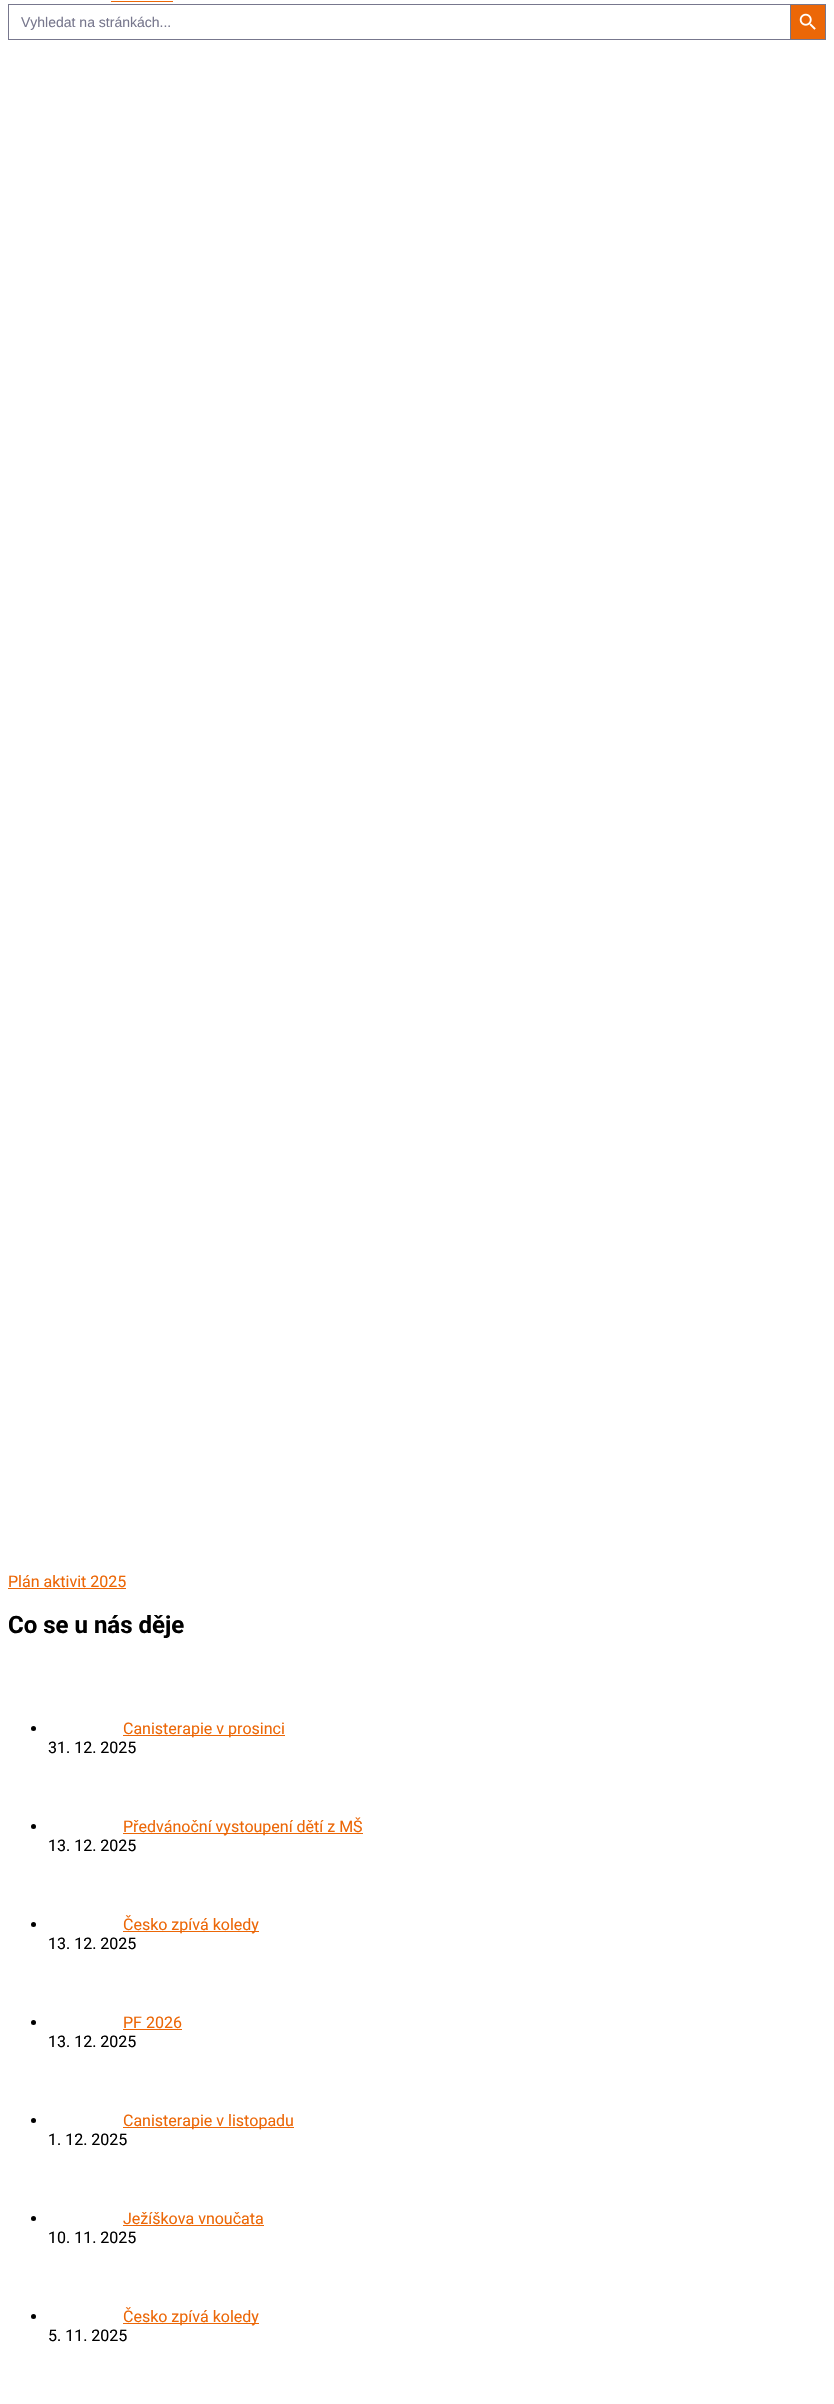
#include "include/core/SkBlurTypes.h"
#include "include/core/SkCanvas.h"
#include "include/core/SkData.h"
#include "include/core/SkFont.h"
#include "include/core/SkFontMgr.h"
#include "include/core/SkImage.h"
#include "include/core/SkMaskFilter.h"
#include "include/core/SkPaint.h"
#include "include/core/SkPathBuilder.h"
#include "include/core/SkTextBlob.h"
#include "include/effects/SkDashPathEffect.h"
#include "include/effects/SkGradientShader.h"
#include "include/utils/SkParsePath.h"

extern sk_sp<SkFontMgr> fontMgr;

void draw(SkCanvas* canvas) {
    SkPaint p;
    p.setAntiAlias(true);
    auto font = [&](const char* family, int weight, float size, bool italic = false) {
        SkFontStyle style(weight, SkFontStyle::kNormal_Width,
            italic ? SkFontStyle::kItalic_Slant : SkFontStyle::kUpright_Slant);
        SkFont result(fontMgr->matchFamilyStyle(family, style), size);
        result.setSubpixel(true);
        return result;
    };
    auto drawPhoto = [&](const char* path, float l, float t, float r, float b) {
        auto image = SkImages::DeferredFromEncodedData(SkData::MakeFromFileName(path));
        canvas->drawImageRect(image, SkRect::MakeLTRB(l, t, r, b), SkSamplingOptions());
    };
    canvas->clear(0xFFFFFFFF);
    {
        const struct { float l, t, r, b; SkColor color; } items[] = {
            {111, 1, 173, 2, 0xFFEC6707},
            {8, 4, 790, 5, 0xFF77778D},
            {8, 39, 790, 40, 0xFF77778D},
            {8, 4, 9, 40, 0xFF77778D},
        };
        for (auto [l, t, r, b, color] : items) {
            p.setColor(color);
            canvas->drawRect(SkRect::MakeLTRB(l, t, r, b), p);
        }
    }
    auto font1 = font("Liberation Sans", 400, 14);
    canvas->drawString("Vyhledat na stránkách...", 21, 27, font1, p);
    p.setColor(0xFFEC6707);
    canvas->drawRect(SkRect::MakeLTRB(790.5f, 4.5f, 825.5f, 39.5f), p);
    p.setStyle(SkPaint::kStroke_Style);
    p.setStrokeWidth(1);
    p.setColor(0xFF77778D);
    canvas->drawRect(SkRect::MakeLTRB(790.5f, 4.5f, 825.5f, 39.5f), p);
    drawPhoto("media/1.png", 799, 13, 816, 30);
    auto font2 = font("Roboto", 400, 16);
    p.setStyle(SkPaint::kFill_Style);
    p.setColor(0xFFEC6707);
    canvas->drawString("Plán aktivit 2025", 8, 1587, font2, p);
    canvas->drawRect(SkRect::MakeLTRB(8, 1588, 126, 1589), p);
    auto font3 = font("Roboto", 700, 24);
    p.setColor(0xFF000000);
    canvas->drawString("Co se u nás děje", 8, 1633, font3, p);
    canvas->drawCircle(33.5f, 1728.5f, 2.5f, p);
    p.setColor(0xFFEC6707);
    canvas->drawRect(SkRect::MakeLTRB(123, 1735, 285, 1736), p);
    canvas->drawString("Canisterapie v prosinci", 123, 1734, font2, p);
    p.setColor(0xFF000000);
    canvas->drawString("31. 12. 2025", 48, 1753, font2, p);
    canvas->drawCircle(33.5f, 1826.5f, 2.5f, p);
    p.setColor(0xFFEC6707);
    canvas->drawRect(SkRect::MakeLTRB(123, 1833, 363, 1834), p);
    canvas->drawString("Předvánoční vystoupení dětí z MŠ", 123, 1832, font2, p);
    p.setColor(0xFF000000);
    canvas->drawString("13. 12. 2025", 48, 1851, font2, p);
    canvas->drawCircle(33.5f, 1924.5f, 2.5f, p);
    p.setColor(0xFFEC6707);
    canvas->drawRect(SkRect::MakeLTRB(123, 1931, 259, 1932), p);
    canvas->drawString("Česko zpívá koledy", 123, 1930, font2, p);
    p.setColor(0xFF000000);
    canvas->drawString("13. 12. 2025", 48, 1949, font2, p);
    canvas->drawCircle(33.5f, 2022.5f, 2.5f, p);
    p.setColor(0xFFEC6707);
    canvas->drawString("PF 2026", 123, 2028, font2, p);
    canvas->drawRect(SkRect::MakeLTRB(123, 2029, 182, 2030), p);
    p.setColor(0xFF000000);
    canvas->drawString("13. 12. 2025", 48, 2047, font2, p);
    canvas->drawCircle(33.5f, 2120.5f, 2.5f, p);
    p.setColor(0xFFEC6707);
    canvas->drawRect(SkRect::MakeLTRB(123, 2127, 294, 2128), p);
    canvas->drawString("Canisterapie v listopadu", 123, 2126, font2, p);
    p.setColor(0xFF000000);
    canvas->drawString("1. 12. 2025", 48, 2145, font2, p);
    canvas->drawCircle(33.5f, 2218.5f, 2.5f, p);
    p.setColor(0xFFEC6707);
    canvas->drawString("Ježíškova vnoučata", 123, 2224, font2, p);
    canvas->drawRect(SkRect::MakeLTRB(123, 2225, 264, 2226), p);
    p.setColor(0xFF000000);
    canvas->drawString("10. 11. 2025", 48, 2243, font2, p);
    canvas->drawCircle(33.5f, 2316.5f, 2.5f, p);
    p.setColor(0xFFEC6707);
    canvas->drawRect(SkRect::MakeLTRB(123, 2323, 259, 2324), p);
    canvas->drawString("Česko zpívá koledy", 123, 2322, font2, p);
    p.setColor(0xFF000000);
    canvas->drawString("5. 11. 2025", 48, 2341, font2, p);
}
